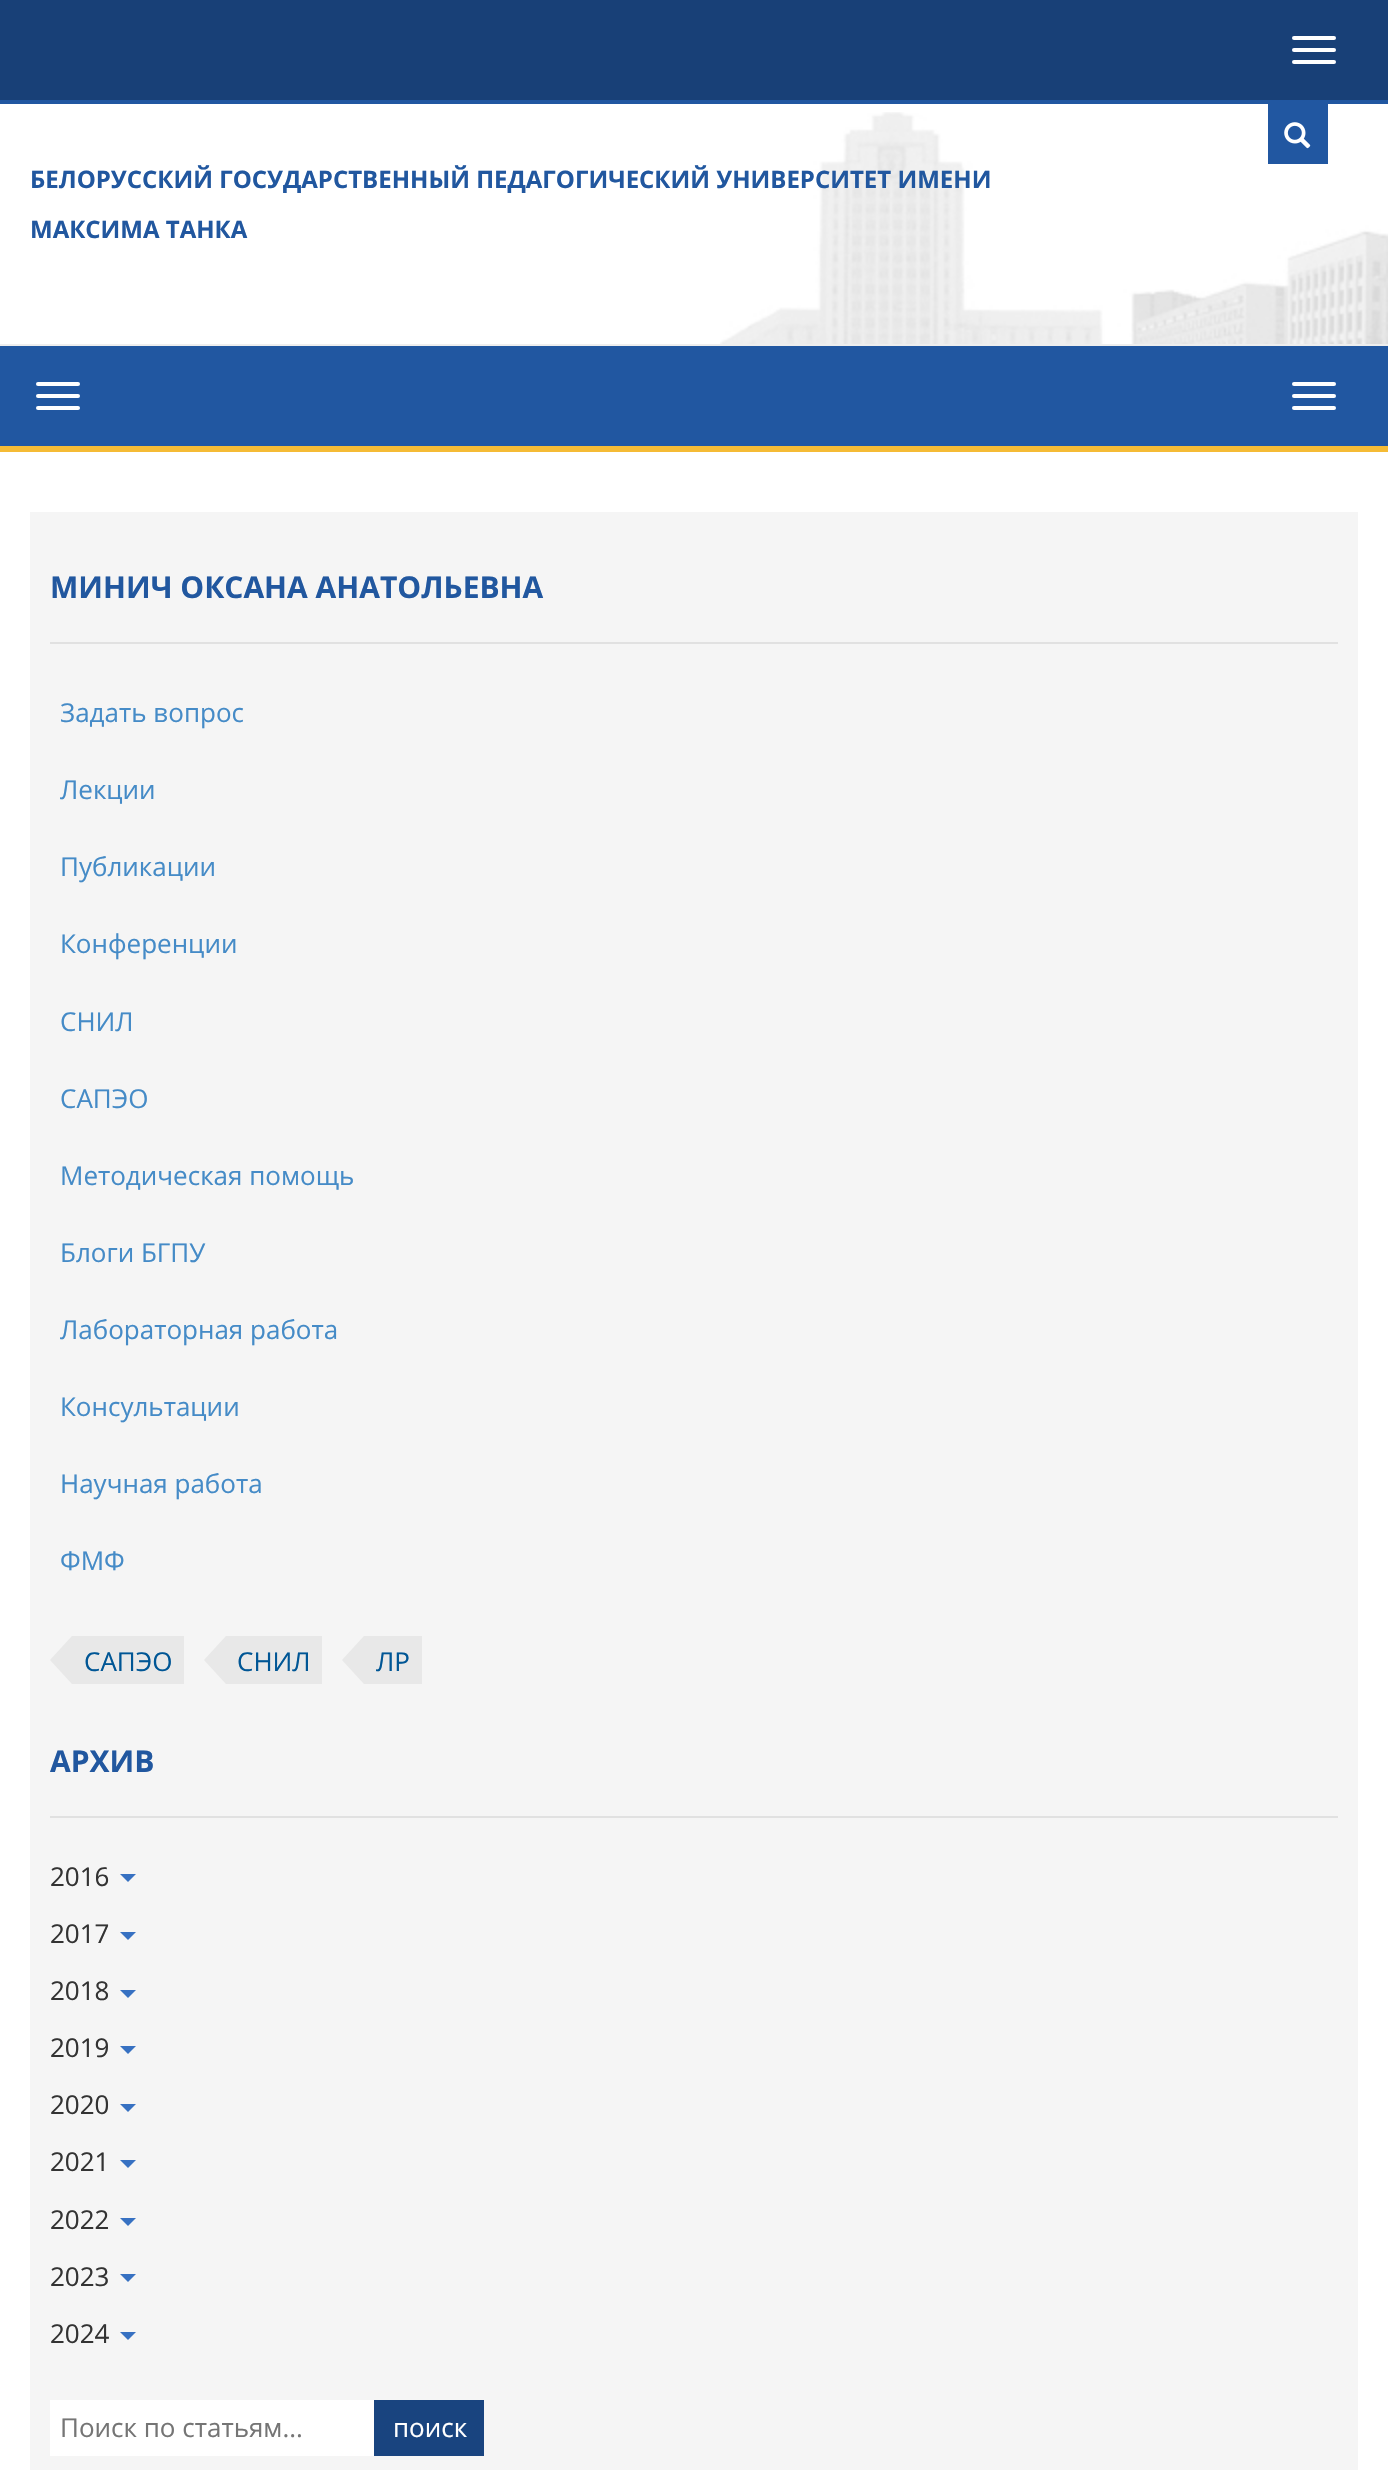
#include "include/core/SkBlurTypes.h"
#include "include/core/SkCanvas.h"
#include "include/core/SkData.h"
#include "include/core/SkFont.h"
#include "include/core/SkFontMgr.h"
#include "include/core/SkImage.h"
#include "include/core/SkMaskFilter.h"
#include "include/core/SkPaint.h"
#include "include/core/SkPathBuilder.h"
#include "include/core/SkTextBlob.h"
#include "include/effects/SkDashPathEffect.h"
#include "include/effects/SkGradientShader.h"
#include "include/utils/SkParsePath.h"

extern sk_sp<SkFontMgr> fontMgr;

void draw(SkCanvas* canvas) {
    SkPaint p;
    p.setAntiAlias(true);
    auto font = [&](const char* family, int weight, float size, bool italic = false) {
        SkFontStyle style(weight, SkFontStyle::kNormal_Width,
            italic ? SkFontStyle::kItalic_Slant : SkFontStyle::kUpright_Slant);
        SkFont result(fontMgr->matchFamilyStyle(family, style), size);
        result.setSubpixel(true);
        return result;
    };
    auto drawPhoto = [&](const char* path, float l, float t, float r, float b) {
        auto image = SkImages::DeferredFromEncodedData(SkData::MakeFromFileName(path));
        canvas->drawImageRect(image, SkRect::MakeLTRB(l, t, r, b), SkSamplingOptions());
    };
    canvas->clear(0xFFFFFFFF);
    p.setColor(0xFF184077);
    canvas->drawRect(SkRect::MakeLTRB(0, 0, 1388, 100), p);
    p.setColor(0xFFFFFFFF);
    canvas->drawRoundRect(SkRect::MakeLTRB(1292, 36, 1336, 40), 2, 2, p);
    canvas->drawRoundRect(SkRect::MakeLTRB(1292, 48, 1336, 52), 2, 2, p);
    canvas->drawRoundRect(SkRect::MakeLTRB(1292, 60, 1336, 64), 2, 2, p);
    p.setColor(0xFF2157A1);
    canvas->drawRect(SkRect::MakeLTRB(0, 100, 1388, 104), p);
    drawPhoto("media/1.png", 720, 112, 1388, 344);
    canvas->drawRect(SkRect::MakeLTRB(1268, 104, 1328, 164), p);
    drawPhoto("media/2.png", 1284, 122, 1311, 149);
    auto font1 = font("Open Sans", 700, 24);
    p.setColor(0xFF21579F);
    canvas->drawString("БЕЛОРУССКИЙ ГОСУДАРСТВЕННЫЙ ПЕДАГОГИЧЕСКИЙ УНИВЕРСИТЕТ ИМЕНИ", 30, 188, font1, p);
    canvas->drawString("МАКСИМА ТАНКА", 30, 238, font1, p);
    {
        const struct { float l, t, r, b; SkColor color; } items[] = {
            {0, 346, 1388, 446, 0xFF2157A1},
            {0, 344, 1388, 346, 0xFFEEEEEE},
            {0, 446, 1388, 452, 0xFFF5BB35},
        };
        for (auto [l, t, r, b, color] : items) {
            p.setColor(color);
            canvas->drawRect(SkRect::MakeLTRB(l, t, r, b), p);
        }
    }
    p.setColor(0xFFFFFFFF);
    canvas->drawRoundRect(SkRect::MakeLTRB(36, 382, 80, 386), 2, 2, p);
    canvas->drawRoundRect(SkRect::MakeLTRB(36, 394, 80, 398), 2, 2, p);
    canvas->drawRoundRect(SkRect::MakeLTRB(36, 406, 80, 410), 2, 2, p);
    canvas->drawRoundRect(SkRect::MakeLTRB(1292, 382, 1336, 386), 2, 2, p);
    canvas->drawRoundRect(SkRect::MakeLTRB(1292, 394, 1336, 398), 2, 2, p);
    canvas->drawRoundRect(SkRect::MakeLTRB(1292, 406, 1336, 410), 2, 2, p);
    p.setColor(0xFFF5F5F5);
    canvas->drawRect(SkRect::MakeLTRB(30, 512, 1358, 2470), p);
    p.setColor(0xFFE1E1E1);
    canvas->drawRect(SkRect::MakeLTRB(50, 642, 1338, 644), p);
    auto font2 = font("Open Sans", 700, 30);
    p.setColor(0xFF21579F);
    canvas->drawString("МИНИЧ ОКСАНА АНАТОЛЬЕВНА", 50, 598, font2, p);
    auto font3 = font("Open Sans", 400, 26);
    p.setColor(0xFF458BC7);
    {
        const struct { const char* s; float x, y; } items[] = {
            {"Задать вопрос", 60, 722},
            {"Лекции", 60, 799},
            {"Публикации", 60, 876},
            {"Конференции", 60, 953},
            {"СНИЛ", 60, 1031},
            {"САПЭО", 60, 1108},
            {"Методическая помощь", 60, 1185},
            {"Блоги БГПУ", 60, 1262},
            {"Лабораторная работа", 60, 1339},
            {"Консультации", 60, 1416},
            {"Научная работа", 60, 1493},
            {"ФМФ", 60, 1570},
        };
        for (auto [s, x, y] : items) {
            canvas->drawString(s, x, y, font3, p);
        }
    }
    p.setColor(0xFFE8E8E8);
    canvas->drawPath(SkPathBuilder().moveTo(72, 1636).lineTo(72, 1684).lineTo(50, 1660).close().detach(), p);
    canvas->drawRect(SkRect::MakeLTRB(72, 1636, 184, 1684), p);
    p.setColor(0xFF005695);
    canvas->drawString("САПЭО", 84, 1671, font3, p);
    p.setColor(0xFFE8E8E8);
    canvas->drawPath(SkPathBuilder().moveTo(226, 1636).lineTo(226, 1684).lineTo(204, 1660).close().detach(), p);
    canvas->drawRect(SkRect::MakeLTRB(226, 1636, 322, 1684), p);
    p.setColor(0xFF005695);
    canvas->drawString("СНИЛ", 237, 1671, font3, p);
    p.setColor(0xFFE8E8E8);
    canvas->drawPath(SkPathBuilder().moveTo(364, 1636).lineTo(364, 1684).lineTo(342, 1660).close().detach(), p);
    canvas->drawRect(SkRect::MakeLTRB(364, 1636, 422, 1684), p);
    p.setColor(0xFF005695);
    canvas->drawString("ЛР", 376, 1671, font3, p);
    p.setColor(0xFFE1E1E1);
    canvas->drawRect(SkRect::MakeLTRB(50, 1816, 1338, 1818), p);
    p.setColor(0xFF21579F);
    canvas->drawString("АРХИВ", 50, 1772, font2, p);
    p.setColor(0xFF333333);
    canvas->drawString("2016", 50, 1886, font3, p);
    p.setColor(0xFF3771C2);
    canvas->drawPath(SkPathBuilder().moveTo(120, 1874).lineTo(136, 1874).lineTo(128, 1882).close().detach(), p);
    p.setColor(0xFF333333);
    canvas->drawString("2017", 50, 1943, font3, p);
    p.setColor(0xFF3771C2);
    canvas->drawPath(SkPathBuilder().moveTo(120, 1932).lineTo(136, 1932).lineTo(128, 1940).close().detach(), p);
    p.setColor(0xFF333333);
    canvas->drawString("2018", 50, 2000, font3, p);
    p.setColor(0xFF3771C2);
    canvas->drawPath(SkPathBuilder().moveTo(120, 1990).lineTo(136, 1990).lineTo(128, 1998).close().detach(), p);
    p.setColor(0xFF333333);
    canvas->drawString("2019", 50, 2057, font3, p);
    p.setColor(0xFF3771C2);
    canvas->drawPath(SkPathBuilder().moveTo(120, 2046).lineTo(136, 2046).lineTo(128, 2054).close().detach(), p);
    p.setColor(0xFF333333);
    canvas->drawString("2020", 50, 2114, font3, p);
    p.setColor(0xFF3771C2);
    canvas->drawPath(SkPathBuilder().moveTo(120, 2104).lineTo(136, 2104).lineTo(128, 2112).close().detach(), p);
    p.setColor(0xFF333333);
    canvas->drawString("2021", 50, 2171, font3, p);
    p.setColor(0xFF3771C2);
    canvas->drawPath(SkPathBuilder().moveTo(120, 2160).lineTo(136, 2160).lineTo(128, 2168).close().detach(), p);
    p.setColor(0xFF333333);
    canvas->drawString("2022", 50, 2229, font3, p);
    p.setColor(0xFF3771C2);
    canvas->drawPath(SkPathBuilder().moveTo(120, 2218).lineTo(136, 2218).lineTo(128, 2226).close().detach(), p);
    p.setColor(0xFF333333);
    canvas->drawString("2023", 50, 2286, font3, p);
    p.setColor(0xFF3771C2);
    canvas->drawPath(SkPathBuilder().moveTo(120, 2274).lineTo(136, 2274).lineTo(128, 2282).close().detach(), p);
    p.setColor(0xFF333333);
    canvas->drawString("2024", 50, 2343, font3, p);
    p.setColor(0xFF3771C2);
    canvas->drawPath(SkPathBuilder().moveTo(120, 2332).lineTo(136, 2332).lineTo(128, 2340).close().detach(), p);
    p.setColor(0xFFFFFFFF);
    canvas->drawRect(SkRect::MakeLTRB(50, 2400, 374, 2456), p);
    p.setColor(0xFF757575);
    canvas->drawString("Поиск по статьям...", 60, 2437, font3, p);
    p.setColor(0xFF19447F);
    canvas->drawRect(SkRect::MakeLTRB(374, 2400, 484, 2456), p);
    p.setColor(0xFFFFFFFF);
    canvas->drawString("поиск", 393, 2437, font3, p);
}
